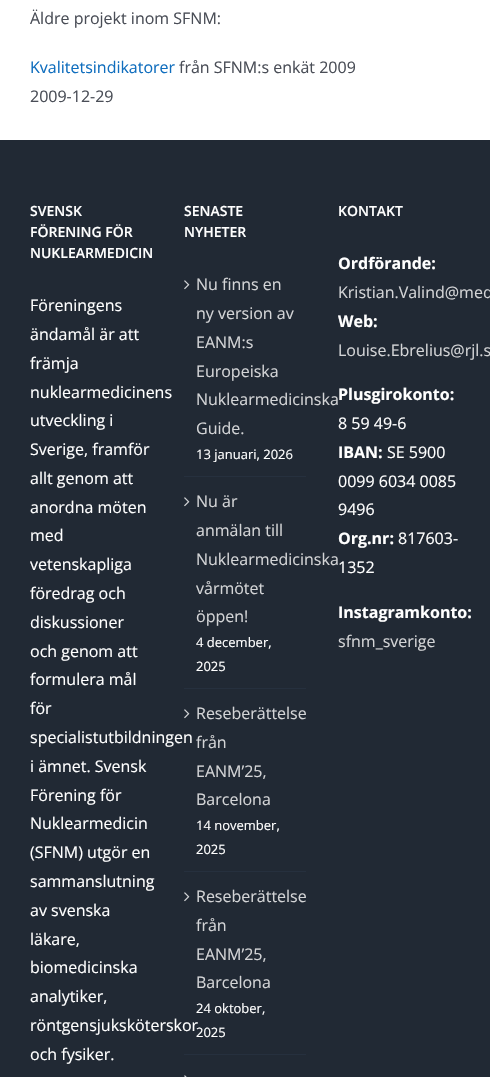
#include "include/core/SkBlurTypes.h"
#include "include/core/SkCanvas.h"
#include "include/core/SkData.h"
#include "include/core/SkFont.h"
#include "include/core/SkFontMgr.h"
#include "include/core/SkImage.h"
#include "include/core/SkMaskFilter.h"
#include "include/core/SkPaint.h"
#include "include/core/SkPathBuilder.h"
#include "include/core/SkTextBlob.h"
#include "include/effects/SkDashPathEffect.h"
#include "include/effects/SkGradientShader.h"
#include "include/utils/SkParsePath.h"

extern sk_sp<SkFontMgr> fontMgr;

void draw(SkCanvas* canvas) {
    SkPaint p;
    p.setAntiAlias(true);
    auto font = [&](const char* family, int weight, float size, bool italic = false) {
        SkFontStyle style(weight, SkFontStyle::kNormal_Width,
            italic ? SkFontStyle::kItalic_Slant : SkFontStyle::kUpright_Slant);
        SkFont result(fontMgr->matchFamilyStyle(family, style), size);
        result.setSubpixel(true);
        return result;
    };
    auto drawPhoto = [&](const char* path, float l, float t, float r, float b) {
        auto image = SkImages::DeferredFromEncodedData(SkData::MakeFromFileName(path));
        canvas->drawImageRect(image, SkRect::MakeLTRB(l, t, r, b), SkSamplingOptions());
    };
    canvas->clear(0xFFFFFFFF);
    auto font1 = font("Open Sans", 400, 16);
    p.setColor(0xFF4A4E57);
    canvas->drawString("Äldre projekt inom SFNM:", 30, 24, font1, p);
    p.setColor(0xFF106EBE);
    canvas->drawString("Kvalitetsindikatorer", 30, 73, font1, p);
    p.setColor(0xFF4A4E57);
    canvas->drawString("från SFNM:s enkät 2009", 179, 73, font1, p);
    canvas->drawString("2009-12-29", 30, 102, font1, p);
    p.setColor(0xFF212934);
    canvas->drawRect(SkRect::MakeLTRB(0, 140, 490, 1077), p);
    auto font2 = font("Open Sans", 600, 14);
    p.setColor(0xFFFFFFFF);
    {
        const struct { const char* s; float x, y; } items[] = {
            {"SVENSK", 30, 216},
            {"FÖRENING FÖR", 30, 237},
            {"NUKLEARMEDICIN", 30, 258},
        };
        for (auto [s, x, y] : items) {
            canvas->drawString(s, x, y, font2, p);
        }
    }
    {
        const struct { const char* s; float x, y; } items[] = {
            {"Föreningens", 30, 311},
            {"ändamål är att", 30, 340},
            {"främja", 30, 369},
            {"nuklearmedicinens", 30, 398},
            {"utveckling i", 30, 426},
            {"Sverige, framför", 30, 455},
            {"allt genom att", 30, 484},
            {"anordna möten", 30, 513},
            {"med", 30, 541},
            {"vetenskapliga", 30, 570},
            {"föredrag och", 30, 599},
            {"diskussioner", 30, 628},
            {"och genom att", 30, 657},
            {"formulera mål", 30, 685},
            {"för", 30, 714},
            {"specialistutbildningen", 30, 743},
            {"i ämnet. Svensk", 30, 772},
            {"Förening för", 30, 801},
            {"Nuklearmedicin", 30, 829},
            {"(SFNM) utgör en", 30, 858},
            {"sammanslutning", 30, 887},
            {"av svenska", 30, 916},
            {"läkare,", 30, 945},
            {"biomedicinska", 30, 973},
            {"analytiker,", 30, 1002},
            {"röntgensjuksköterskor", 30, 1031},
            {"och fysiker.", 30, 1060},
        };
        for (auto [s, x, y] : items) {
            canvas->drawString(s, x, y, font1, p);
        }
    }
    canvas->drawString("SENASTE", 184, 216, font2, p);
    canvas->drawString("NYHETER", 184, 237, font2, p);
    p.setColor(0xFF26303E);
    canvas->drawRect(SkRect::MakeLTRB(184, 476, 306, 477), p);
    drawPhoto("media/1.png", 184, 280, 190, 290);
    p.setColor(0xFFD3D4D6);
    {
        const struct { const char* s; float x, y; } items[] = {
            {"Nu finns en", 196, 290},
            {"ny version av", 196, 319},
            {"EANM:s", 196, 348},
            {"Europeiska", 196, 377},
            {"Nuklearmedicinska", 196, 405},
            {"Guide.", 196, 434},
        };
        for (auto [s, x, y] : items) {
            canvas->drawString(s, x, y, font1, p);
        }
    }
    auto font3 = font("Open Sans", 400, 13);
    p.setColor(0xFFFFFFFF);
    canvas->drawString("13 januari, 2026", 196, 459, font3, p);
    p.setColor(0xFF26303E);
    canvas->drawRect(SkRect::MakeLTRB(184, 688, 306, 689), p);
    drawPhoto("media/1.png", 184, 497, 190, 507);
    p.setColor(0xFFD3D4D6);
    {
        const struct { const char* s; float x, y; } items[] = {
            {"Nu är", 196, 507},
            {"anmälan till", 196, 536},
            {"Nuklearmedicinska", 196, 565},
            {"vårmötet", 196, 594},
            {"öppen!", 196, 622},
        };
        for (auto [s, x, y] : items) {
            canvas->drawString(s, x, y, font1, p);
        }
    }
    p.setColor(0xFFFFFFFF);
    canvas->drawString("4 december,", 196, 647, font3, p);
    canvas->drawString("2025", 196, 671, font3, p);
    p.setColor(0xFF26303E);
    canvas->drawRect(SkRect::MakeLTRB(184, 871, 306, 872), p);
    drawPhoto("media/1.png", 184, 709, 190, 719);
    p.setColor(0xFFD3D4D6);
    {
        const struct { const char* s; float x, y; } items[] = {
            {"Reseberättelse", 196, 719},
            {"från", 196, 748},
            {"EANM’25,", 196, 777},
            {"Barcelona", 196, 805},
        };
        for (auto [s, x, y] : items) {
            canvas->drawString(s, x, y, font1, p);
        }
    }
    p.setColor(0xFFFFFFFF);
    canvas->drawString("14 november,", 196, 830, font3, p);
    canvas->drawString("2025", 196, 854, font3, p);
    p.setColor(0xFF26303E);
    canvas->drawRect(SkRect::MakeLTRB(184, 1054, 306, 1055), p);
    drawPhoto("media/1.png", 184, 892, 190, 902);
    p.setColor(0xFFD3D4D6);
    {
        const struct { const char* s; float x, y; } items[] = {
            {"Reseberättelse", 196, 902},
            {"från", 196, 931},
            {"EANM’25,", 196, 960},
            {"Barcelona", 196, 988},
        };
        for (auto [s, x, y] : items) {
            canvas->drawString(s, x, y, font1, p);
        }
    }
    p.setColor(0xFFFFFFFF);
    canvas->drawString("24 oktober,", 196, 1013, font3, p);
    canvas->drawString("2025", 196, 1037, font3, p);
    drawPhoto("media/2.png", 184, 1075, 187, 1077);
    canvas->drawString("KONTAKT", 338, 216, font2, p);
    auto font4 = font("Open Sans", 700, 16);
    canvas->drawString("Ordförande:", 338, 269, font4, p);
    p.setColor(0xFFD3D4D6);
    canvas->drawString("Kristian.Valind@med", 338, 298, font1, p);
    p.setColor(0xFFFFFFFF);
    canvas->drawString("Web:", 338, 327, font4, p);
    p.setColor(0xFFD3D4D6);
    canvas->drawString("Louise.Ebrelius@rjl.s", 338, 356, font1, p);
    p.setColor(0xFFFFFFFF);
    canvas->drawString("Plusgirokonto:", 338, 400, font4, p);
    canvas->drawString("8 59 49-6", 338, 429, font1, p);
    canvas->drawString("IBAN:", 338, 458, font4, p);
    {
        const struct { const char* s; float x, y; } items[] = {
            {"SE 5900", 387, 458},
            {"0099 6034 0085", 338, 487},
            {"9496", 338, 515},
        };
        for (auto [s, x, y] : items) {
            canvas->drawString(s, x, y, font1, p);
        }
    }
    canvas->drawString("Org.nr:", 338, 544, font4, p);
    canvas->drawString("817603-", 398, 544, font1, p);
    canvas->drawString("1352", 338, 573, font1, p);
    canvas->drawString("Instagramkonto:", 338, 618, font4, p);
    p.setColor(0xFFD3D4D6);
    canvas->drawString("sfnm_sverige", 338, 647, font1, p);
}
